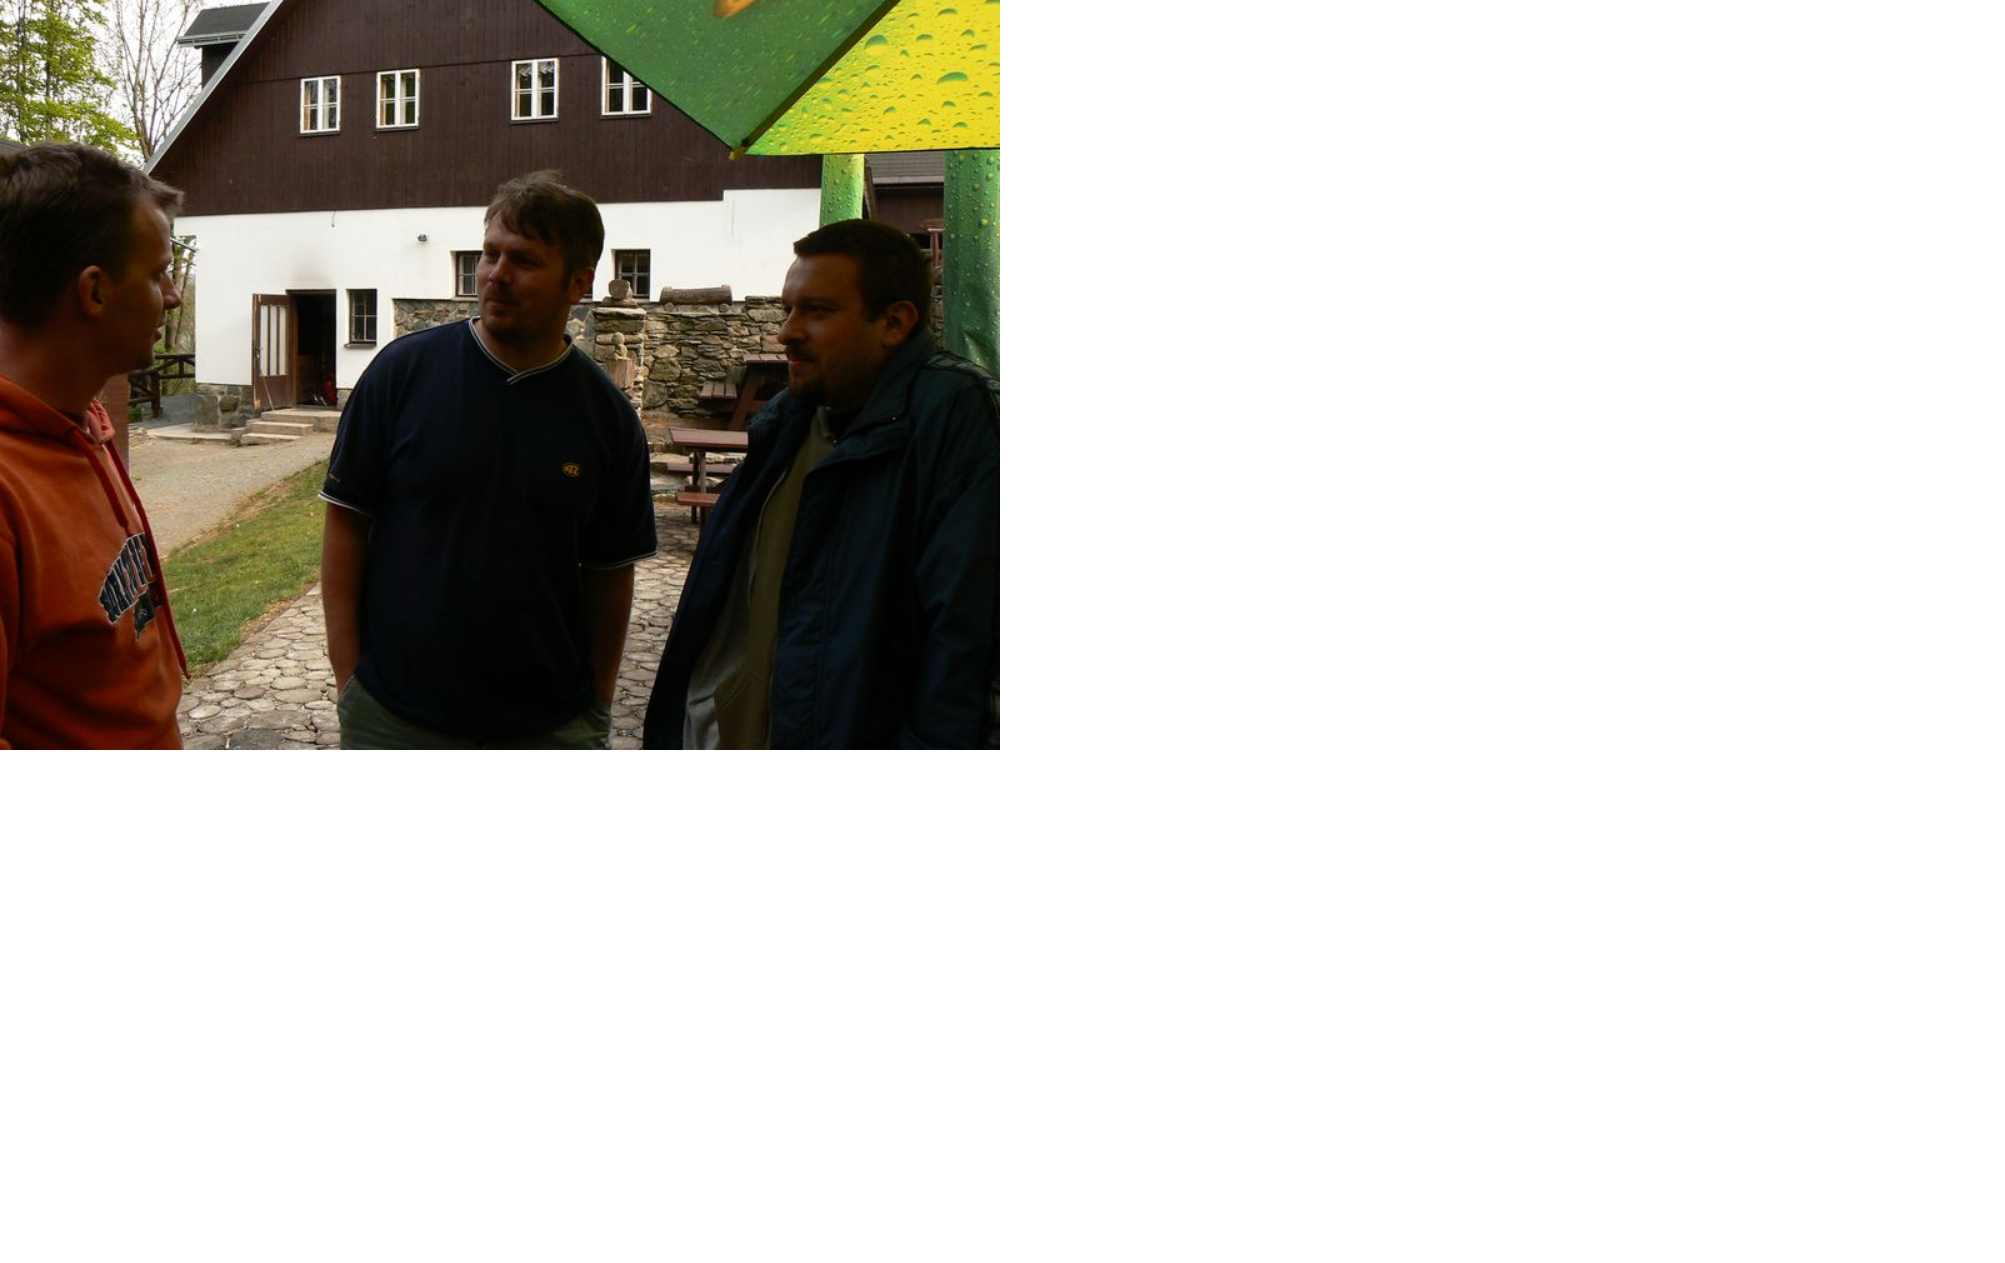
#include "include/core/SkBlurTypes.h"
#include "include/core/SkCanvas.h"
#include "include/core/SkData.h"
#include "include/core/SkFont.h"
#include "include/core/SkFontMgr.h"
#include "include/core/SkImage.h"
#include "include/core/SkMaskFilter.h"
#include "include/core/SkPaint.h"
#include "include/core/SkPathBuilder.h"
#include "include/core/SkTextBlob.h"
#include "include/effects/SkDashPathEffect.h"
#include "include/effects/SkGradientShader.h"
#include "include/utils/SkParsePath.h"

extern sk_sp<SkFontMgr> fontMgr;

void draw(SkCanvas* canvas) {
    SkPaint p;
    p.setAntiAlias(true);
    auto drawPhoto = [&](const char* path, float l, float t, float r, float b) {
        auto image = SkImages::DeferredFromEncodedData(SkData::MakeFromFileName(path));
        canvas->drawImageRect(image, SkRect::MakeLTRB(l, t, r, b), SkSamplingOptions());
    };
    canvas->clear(0xFFFFFFFF);
    drawPhoto("media/1.png", 0, 0, 1000, 750);
}
